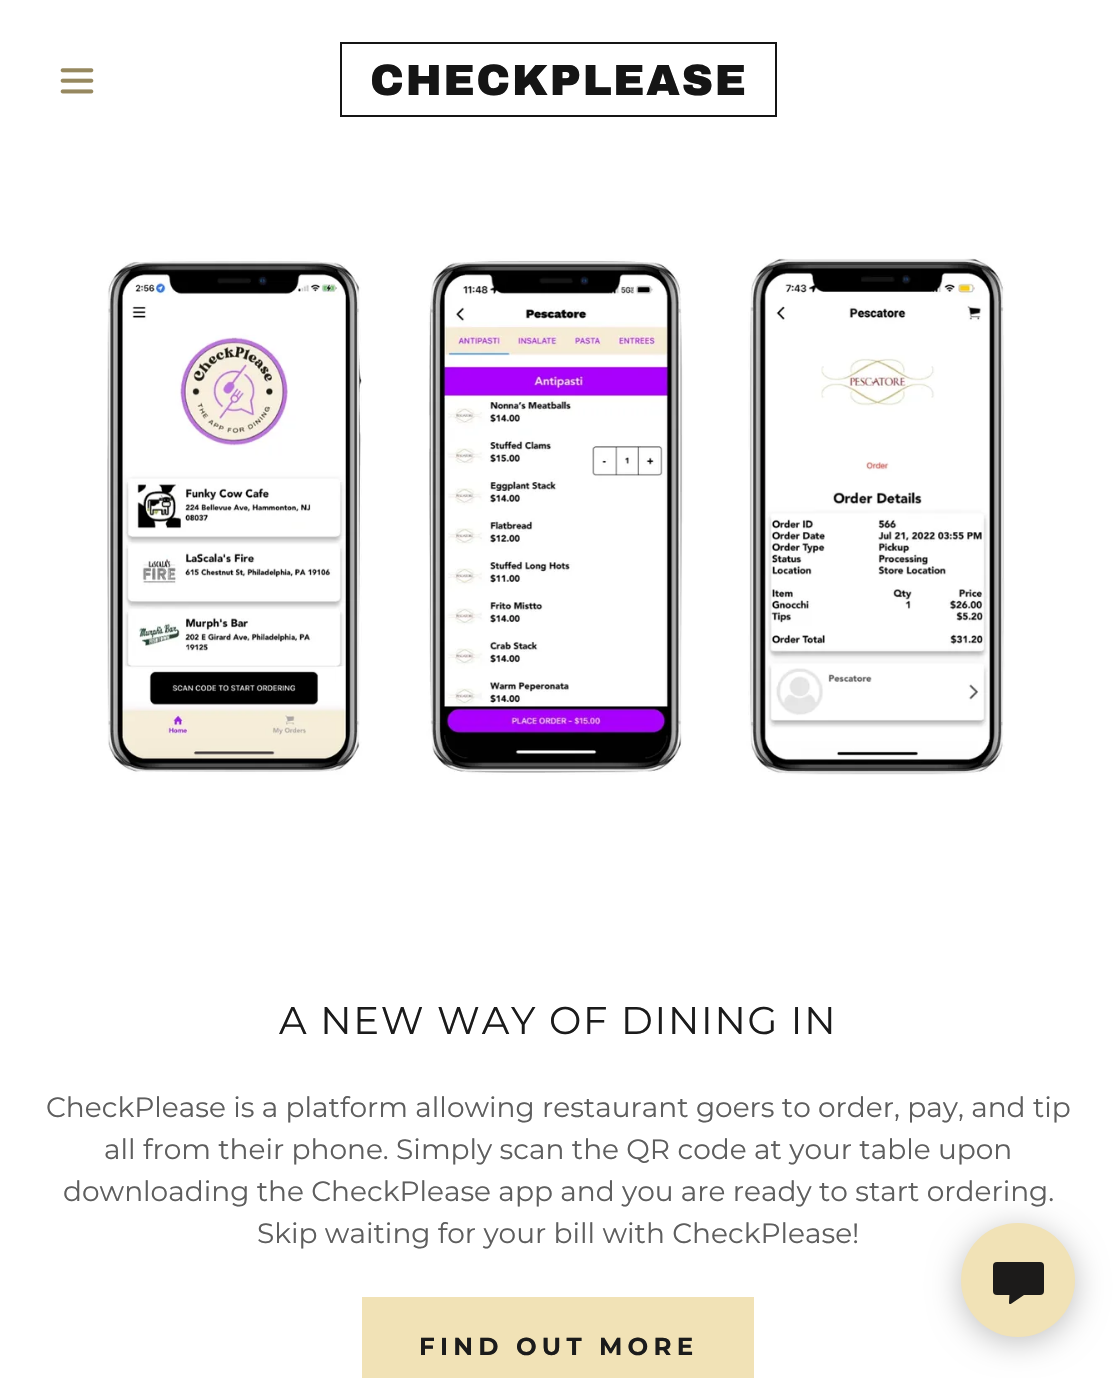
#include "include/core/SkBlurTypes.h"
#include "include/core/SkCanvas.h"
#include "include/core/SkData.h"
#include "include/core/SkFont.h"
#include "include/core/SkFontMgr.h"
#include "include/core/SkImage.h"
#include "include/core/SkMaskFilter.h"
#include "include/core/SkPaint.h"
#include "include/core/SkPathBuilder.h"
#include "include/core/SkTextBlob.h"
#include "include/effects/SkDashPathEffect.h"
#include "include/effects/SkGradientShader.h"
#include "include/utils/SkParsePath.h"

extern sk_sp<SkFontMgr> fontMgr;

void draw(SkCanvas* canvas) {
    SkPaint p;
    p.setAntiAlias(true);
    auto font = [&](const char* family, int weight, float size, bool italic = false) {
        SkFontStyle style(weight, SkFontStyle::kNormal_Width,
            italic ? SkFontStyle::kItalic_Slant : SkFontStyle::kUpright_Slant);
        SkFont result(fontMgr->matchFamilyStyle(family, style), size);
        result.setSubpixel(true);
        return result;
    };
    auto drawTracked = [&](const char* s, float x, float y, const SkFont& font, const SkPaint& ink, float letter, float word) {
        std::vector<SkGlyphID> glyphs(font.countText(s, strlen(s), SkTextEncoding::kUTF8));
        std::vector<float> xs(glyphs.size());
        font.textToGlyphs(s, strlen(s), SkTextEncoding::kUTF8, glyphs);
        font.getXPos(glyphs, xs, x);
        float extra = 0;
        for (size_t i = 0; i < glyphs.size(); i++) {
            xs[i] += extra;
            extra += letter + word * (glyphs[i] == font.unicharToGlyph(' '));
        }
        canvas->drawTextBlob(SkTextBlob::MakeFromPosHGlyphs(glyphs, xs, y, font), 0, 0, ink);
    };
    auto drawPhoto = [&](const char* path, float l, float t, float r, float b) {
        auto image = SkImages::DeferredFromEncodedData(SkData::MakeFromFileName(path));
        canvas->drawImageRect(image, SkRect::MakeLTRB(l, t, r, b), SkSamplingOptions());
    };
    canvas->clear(0xFFFFFFFF);
    drawPhoto("media/1.png", 60, 68, 94, 94);
    p.setStyle(SkPaint::kStroke_Style);
    p.setStrokeWidth(2);
    p.setColor(0xFF151515);
    canvas->drawRect(SkRect::MakeLTRB(341, 43, 776, 116), p);
    auto font1 = font("Archivo Black", 900, 43.75f);
    p.setStyle(SkPaint::kFill_Style);
    drawTracked("CHECKPLEASE", 370, 95, font1, p, 1.4f, 0);
    drawPhoto("media/2.png", 107, 258, 1005, 775);
    auto font2 = font("Montserrat", 400, 38.5f);
    p.setColor(0xFF1B1B1B);
    drawTracked("A NEW WAY OF DINING IN", 279, 1034, font2, p, 1.75f, 0);
    auto font3 = font("Montserrat", 400, 28);
    p.setColor(0xFF5E5E5E);
    {
        const struct { const char* s; float x, y; } items[] = {
            {"CheckPlease is a platform allowing restaurant goers to order, pay, and tip", 46, 1117},
            {"all from their phone. Simply scan the QR code at your table upon", 104, 1159},
            {"downloading the CheckPlease app and you are ready to start ordering.", 63, 1201},
            {"Skip waiting for your bill with CheckPlease!", 257, 1243},
        };
        for (auto [s, x, y] : items) {
            canvas->drawString(s, x, y, font3, p);
        }
    }
    p.setColor(0xFFF1E2B6);
    canvas->drawRect(SkRect::MakeLTRB(362, 1297, 754, 1378), p);
    auto font4 = font("Montserrat", 700, 24.5f);
    p.setColor(0xFF1B1B1B);
    drawTracked("FIND OUT MORE", 419, 1355, font4, p, 5.25f, 0);
    p.setColor(0x40000000);
    p.setMaskFilter(SkMaskFilter::MakeBlur(kNormal_SkBlurStyle, 16));
    canvas->drawRoundRect(SkRect::MakeLTRB(961, 1229, 1075, 1342), 56.5f, 56.5f, p);
    p.setMaskFilter(nullptr);
    p.setColor(0xFFF1E2B6);
    canvas->drawCircle(1018, 1280, 57, p);
    p.setColor(0xFF1C1B1A);
    canvas->drawRoundRect(SkRect::MakeLTRB(993, 1262, 1044, 1295), 4, 4, p);
    canvas->drawPath(SkPathBuilder().moveTo(1009, 1302).lineTo(1009.5f, 1293.5f).cubicTo(1009.5f, 1292.5f, 1010.5f, 1291.5f, 1011.5f, 1291.5f).lineTo(1023, 1291.5f).cubicTo(1024.5f, 1291.5f, 1025.5f, 1294, 1024, 1295).lineTo(1011.5f, 1303.5f).cubicTo(1011, 1304, 1010.5f, 1304, 1009.5f, 1304).cubicTo(1009, 1303.5f, 1009, 1303, 1009, 1302).close().detach(), p);
}
